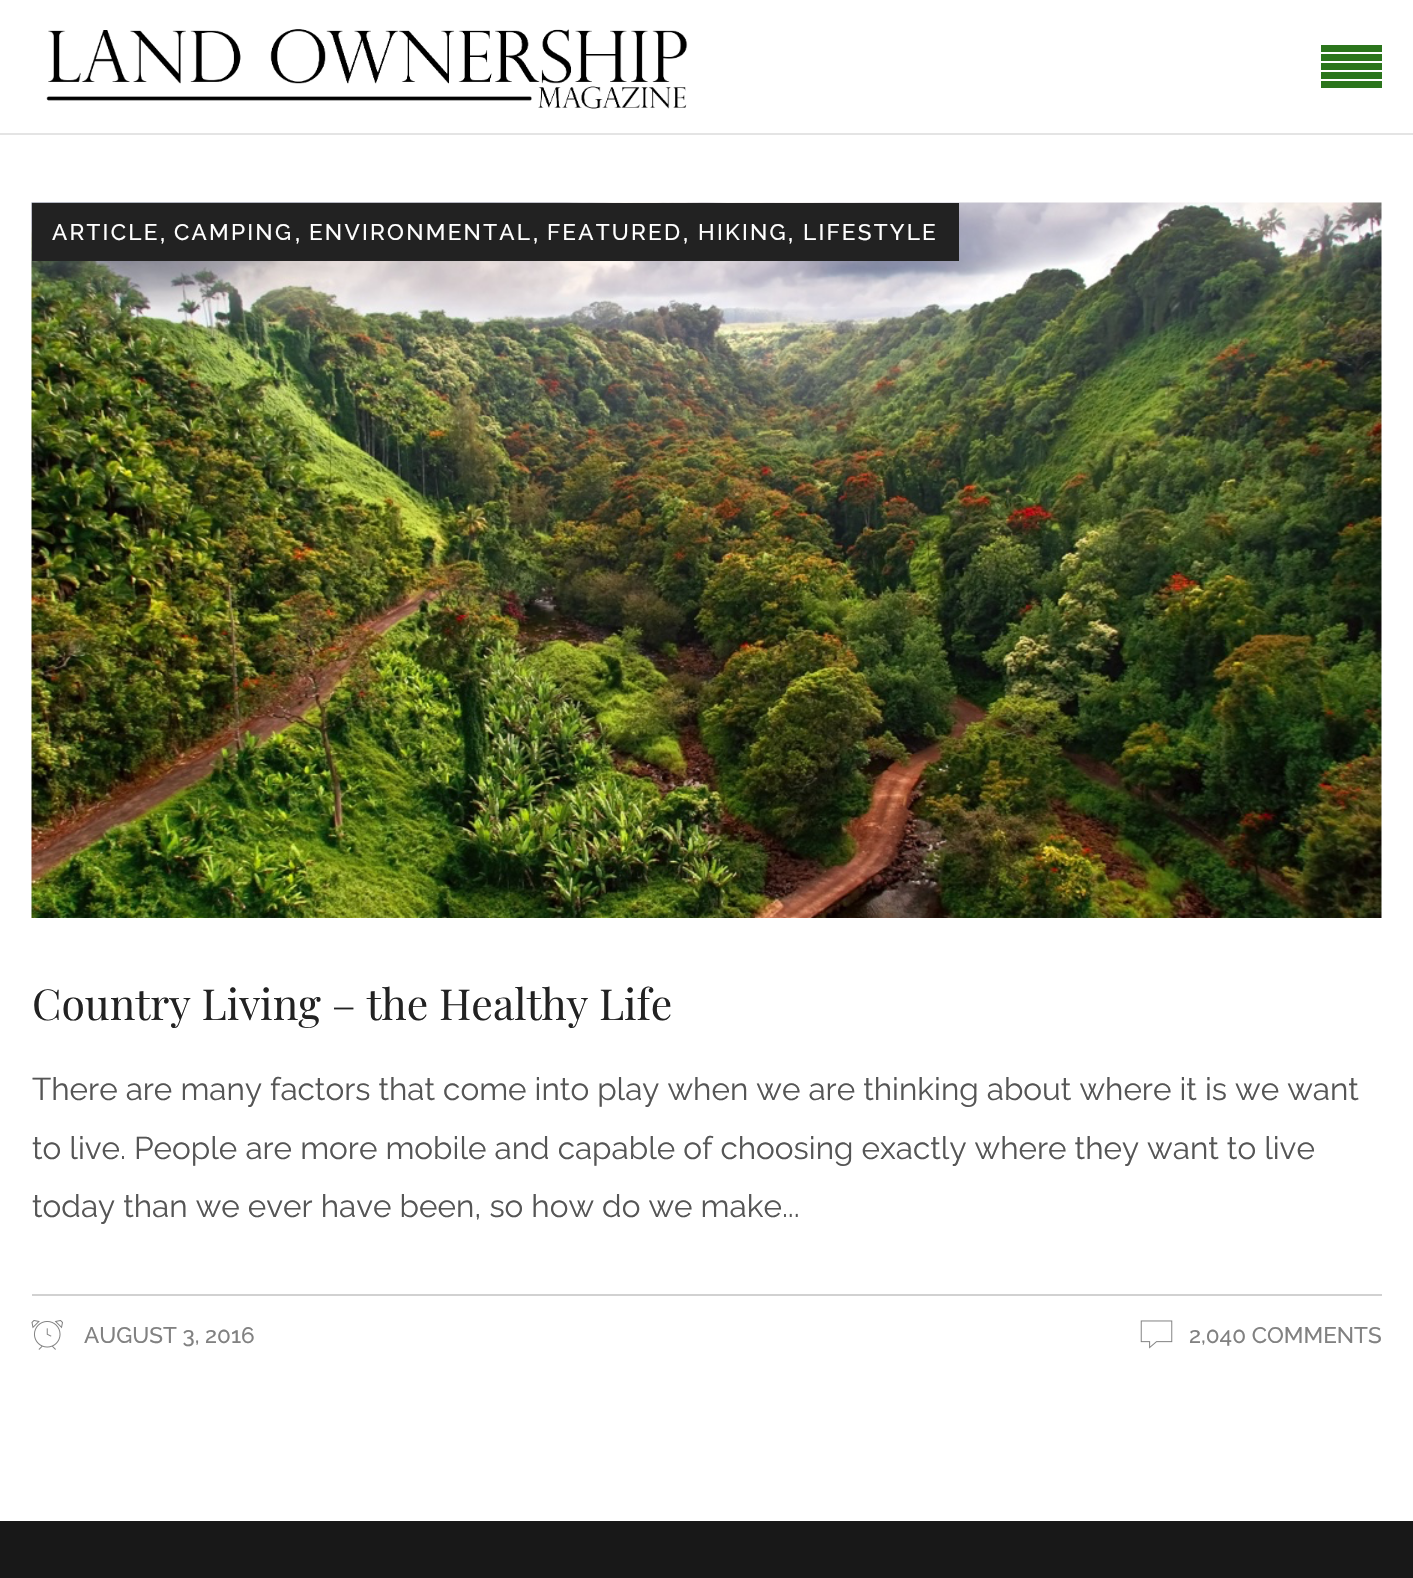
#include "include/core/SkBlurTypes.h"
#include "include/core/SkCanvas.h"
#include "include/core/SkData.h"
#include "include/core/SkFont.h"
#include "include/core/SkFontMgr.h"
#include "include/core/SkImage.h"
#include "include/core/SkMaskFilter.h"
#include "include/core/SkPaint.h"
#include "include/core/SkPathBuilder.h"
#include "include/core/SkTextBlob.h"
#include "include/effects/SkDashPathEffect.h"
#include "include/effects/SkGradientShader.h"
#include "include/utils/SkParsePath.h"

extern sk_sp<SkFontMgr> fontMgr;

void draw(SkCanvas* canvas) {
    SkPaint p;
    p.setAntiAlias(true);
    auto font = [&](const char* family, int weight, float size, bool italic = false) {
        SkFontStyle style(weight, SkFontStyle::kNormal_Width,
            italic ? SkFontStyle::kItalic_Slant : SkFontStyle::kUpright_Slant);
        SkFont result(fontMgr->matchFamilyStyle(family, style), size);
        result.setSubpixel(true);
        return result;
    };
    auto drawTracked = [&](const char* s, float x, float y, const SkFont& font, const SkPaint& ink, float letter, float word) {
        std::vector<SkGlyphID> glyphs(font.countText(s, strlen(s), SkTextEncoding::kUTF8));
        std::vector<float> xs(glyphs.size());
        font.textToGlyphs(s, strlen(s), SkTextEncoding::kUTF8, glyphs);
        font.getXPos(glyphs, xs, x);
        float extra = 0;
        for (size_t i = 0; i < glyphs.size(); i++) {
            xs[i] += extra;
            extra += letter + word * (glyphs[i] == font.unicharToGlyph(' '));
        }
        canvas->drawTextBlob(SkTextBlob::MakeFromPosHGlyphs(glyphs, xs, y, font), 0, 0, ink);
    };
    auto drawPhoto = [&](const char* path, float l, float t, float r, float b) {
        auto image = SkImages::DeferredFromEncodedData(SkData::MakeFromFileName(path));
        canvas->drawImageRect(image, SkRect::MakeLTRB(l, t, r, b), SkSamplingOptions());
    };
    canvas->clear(0xFFFFFFFF);
    p.setColor(0xFFE4E4E4);
    canvas->drawRect(SkRect::MakeLTRB(0, 133, 1413, 135), p);
    drawPhoto("media/1.png", 46, 29, 688, 109);
    {
        const struct { float l, t, r, b; SkColor color; } items[] = {
            {1321, 45, 1382, 52, 0xFF2B751C},
            {1321, 54, 1382, 61, 0xFF2B751C},
            {1321, 63, 1382, 70, 0xFF2B751C},
            {1321, 72, 1382, 79, 0xFF2B751C},
            {1321, 81, 1382, 88, 0xFF2B751C},
        };
        for (auto [l, t, r, b, color] : items) {
            p.setColor(color);
            canvas->drawRect(SkRect::MakeLTRB(l, t, r, b), p);
        }
    }
    drawPhoto("media/2.png", 31, 202, 1382, 918);
    p.setColor(0xFF222222);
    canvas->drawRect(SkRect::MakeLTRB(32, 203, 959, 261), p);
    auto font1 = font("Raleway", 500, 22.5f);
    p.setColor(0xFFFFFFFF);
    drawTracked("ARTICLE", 52, 240, font1, p, 2.25f, 0);
    auto font2 = font("Raleway", 400, 31.5f);
    canvas->drawString(",", 159, 241, font2, p);
    drawTracked("CAMPING", 174, 240, font1, p, 2.25f, 0);
    canvas->drawString(",", 294, 241, font2, p);
    drawTracked("ENVIRONMENTAL", 309, 240, font1, p, 2.25f, 0);
    canvas->drawString(",", 532, 241, font2, p);
    drawTracked("FEATURED", 547, 240, font1, p, 2.25f, 0);
    canvas->drawString(",", 682, 241, font2, p);
    drawTracked("HIKING", 698, 240, font1, p, 2.25f, 0);
    canvas->drawString(",", 787, 241, font2, p);
    drawTracked("LIFESTYLE", 803, 240, font1, p, 2.25f, 0);
    auto font3 = font("Playfair Display", 400, 42.75f);
    p.setColor(0xFF222222);
    canvas->drawString("Country Living – the Healthy Life", 32, 1020, font3, p);
    p.setColor(0xFF555555);
    {
        const struct { const char* s; float x, y; } items[] = {
            {"There are many factors that come into play when we are thinking about where it is we want", 32, 1100},
            {"to live. People are more mobile and capable of choosing exactly where they want to live", 32, 1159},
            {"today than we ever have been, so how do we make...", 32, 1217},
        };
        for (auto [s, x, y] : items) {
            canvas->drawString(s, x, y, font2, p);
        }
    }
    p.setColor(0xFFD1D1D1);
    canvas->drawRect(SkRect::MakeLTRB(32, 1294, 1382, 1296), p);
    drawPhoto("media/3.png", 31, 1320, 63, 1350);
    p.setColor(0xFF818181);
    canvas->drawString("AUGUST 3, 2016", 84, 1343, font1, p);
    drawPhoto("media/4.png", 1140, 1320, 1173, 1349);
    canvas->drawString("2,040 COMMENTS", 1189, 1343, font1, p);
    p.setColor(0xFF181818);
    canvas->drawRect(SkRect::MakeLTRB(0, 1521, 1413, 1578), p);
}
